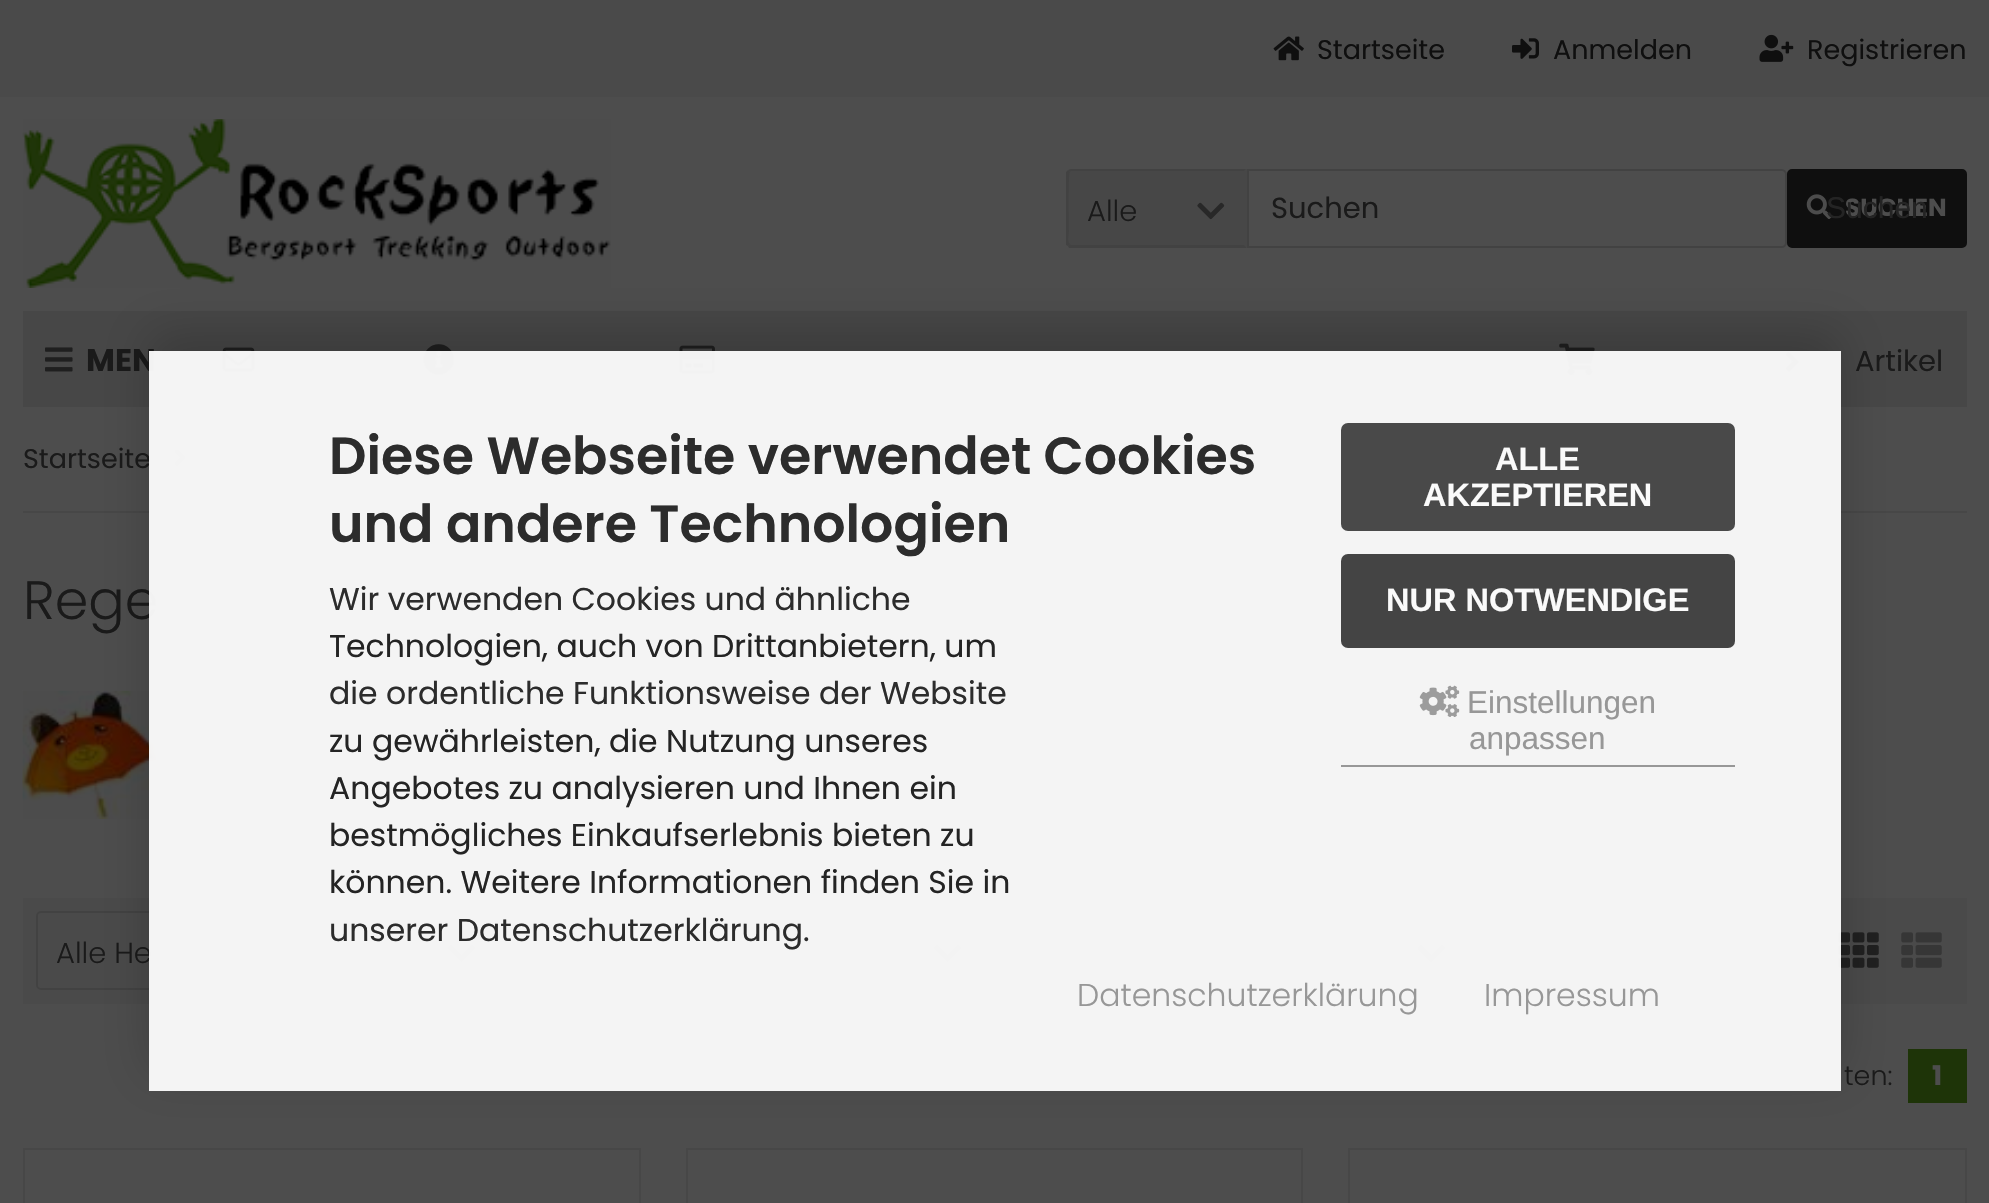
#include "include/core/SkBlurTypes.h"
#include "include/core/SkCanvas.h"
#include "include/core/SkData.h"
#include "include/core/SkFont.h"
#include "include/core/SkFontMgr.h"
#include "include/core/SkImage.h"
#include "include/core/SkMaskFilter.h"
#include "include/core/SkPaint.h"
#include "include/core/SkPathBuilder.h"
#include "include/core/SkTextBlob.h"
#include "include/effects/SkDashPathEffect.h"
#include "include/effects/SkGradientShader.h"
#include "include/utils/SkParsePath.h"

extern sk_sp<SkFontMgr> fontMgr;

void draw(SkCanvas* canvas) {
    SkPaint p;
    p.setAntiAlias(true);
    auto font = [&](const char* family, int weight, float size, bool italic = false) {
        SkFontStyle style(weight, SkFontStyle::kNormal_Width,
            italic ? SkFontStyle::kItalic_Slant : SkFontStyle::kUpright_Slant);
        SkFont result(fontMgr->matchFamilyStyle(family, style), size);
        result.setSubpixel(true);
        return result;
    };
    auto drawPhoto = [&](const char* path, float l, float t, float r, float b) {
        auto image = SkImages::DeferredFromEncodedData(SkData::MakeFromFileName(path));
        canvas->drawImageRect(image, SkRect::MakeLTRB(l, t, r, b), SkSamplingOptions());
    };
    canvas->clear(0xFF4D4D4D);
    p.setColor(0xFF4A4A4A);
    canvas->drawRect(SkRect::MakeLTRB(0, 0, 1989, 97), p);
    drawPhoto("media/1.png", 1273, 36, 1304, 61);
    auto font1 = font("Poppins", 400, 27);
    p.setColor(0xFF0F0F0F);
    canvas->drawString("Startseite", 1317, 59, font1, p);
    drawPhoto("media/2.png", 1512, 38, 1539, 59);
    canvas->drawString("Anmelden", 1553, 59, font1, p);
    drawPhoto("media/3.png", 1759, 34, 1794, 62);
    canvas->drawString("Registrieren", 1807, 59, font1, p);
    drawPhoto("media/4.png", 22, 119, 611, 288);
    p.setColor(0xFF474747);
    canvas->drawPath(SkPathBuilder().moveTo(1072, 169).lineTo(1247, 169).lineTo(1247, 248).lineTo(1072, 248).cubicTo(1069, 248, 1067, 246, 1067, 243).lineTo(1067, 174).cubicTo(1067, 171, 1069, 169, 1072, 169).close().detach(), p);
    p.setColor(0xFF424242);
    canvas->drawPath(SkPathBuilder().moveTo(1071, 169).lineTo(1068, 170).lineTo(1070, 172).lineTo(1071, 171).lineTo(1244, 171).lineTo(1246, 169).close().detach(), p);
    canvas->drawPath(SkPathBuilder().moveTo(1069, 248).lineTo(1068, 246).lineTo(1070, 244).lineTo(1071, 245).lineTo(1244, 245).lineTo(1246, 247).lineTo(1246, 248).close().detach(), p);
    canvas->drawPath(SkPathBuilder().moveTo(1066, 172).lineTo(1068, 170).lineTo(1070, 172).cubicTo(1068, 173, 1069, 225, 1069, 231).cubicTo(1069, 236, 1067, 241, 1070, 244).lineTo(1068, 246).lineTo(1066, 245).close().detach(), p);
    auto font2 = font("Poppins", 300, 29);
    p.setColor(0xFF1A1A1A);
    canvas->drawString("Alle", 1087, 221, font2, p);
    drawPhoto("media/5.png", 1197, 202, 1225, 220);
    p.setStyle(SkPaint::kStroke_Style);
    p.setStrokeWidth(2);
    p.setColor(0xFF424242);
    canvas->drawPath(SkPathBuilder().moveTo(1248, 170).lineTo(1782, 170).cubicTo(1784, 170, 1786, 172, 1786, 174).lineTo(1786, 243).cubicTo(1786, 245, 1784, 247, 1782, 247).lineTo(1248, 247).close().detach(), p);
    auto font3 = font("Poppins", 400, 29);
    p.setStyle(SkPaint::kFill_Style);
    p.setColor(0xFF1A1A1A);
    canvas->drawString("Suchen", 1271, 218, font3, p);
    p.setColor(0xFF0F0F0F);
    canvas->drawRoundRect(SkRect::MakeLTRB(1788, 170, 1966, 247), 4, 4, p);
    p.setStyle(SkPaint::kStroke_Style);
    canvas->drawRoundRect(SkRect::MakeLTRB(1788, 170, 1966, 247), 4, 4, p);
    drawPhoto("media/6.png", 1806, 194, 1832, 219);
    auto font4 = font("Poppins", 700, 24.75f);
    p.setStyle(SkPaint::kFill_Style);
    p.setColor(0xFF4D4D4D);
    canvas->drawString("SUCHEN", 1845, 216, font4, p);
    auto font5 = font("Liberation Sans", 400, 30);
    p.setColor(0xFF242424);
    canvas->drawString("Suchen", 1826, 218, font5, p);
    p.setColor(0xFF474747);
    canvas->drawRect(SkRect::MakeLTRB(23, 311, 1967, 407), p);
    drawPhoto("media/7.png", 45, 347, 73, 372);
    auto font6 = font("Poppins", 700, 31.5f);
    p.setColor(0xFF1A1A1A);
    canvas->drawString("MEN", 86, 371, font6, p);
    drawPhoto("media/8.png", 222, 347, 255, 372);
    drawPhoto("media/9.png", 423, 344, 454, 375);
    drawPhoto("media/10.png", 679, 345, 715, 374);
    drawPhoto("media/11.png", 1559, 343, 1595, 376);
    drawPhoto("media/12.png", 1785, 351, 1799, 372);
    canvas->drawString("Artikel", 1855, 371, font3, p);
    p.setColor(0xFF474747);
    canvas->drawRect(SkRect::MakeLTRB(23, 511, 1967, 513), p);
    p.setColor(0xFF1A1A1A);
    canvas->drawString("Startseite", 23, 468, font1, p);
    drawPhoto("media/13.png", 174, 449, 186, 467);
    drawPhoto("media/14.png", 557, 449, 568, 467);
    drawPhoto("media/13.png", 795, 449, 807, 467);
    auto font7 = font("Poppins", 300, 54);
    canvas->drawString("Rege", 23, 619, font7, p);
    drawPhoto("media/15.png", 22, 690, 158, 819);
    p.setColor(0xFF4A4A4A);
    canvas->drawRect(SkRect::MakeLTRB(23, 898, 1967, 1004), p);
    p.setStyle(SkPaint::kStroke_Style);
    p.setColor(0xFF424242);
    canvas->drawRoundRect(SkRect::MakeLTRB(37, 912, 499, 989), 4, 4, p);
    p.setStyle(SkPaint::kFill_Style);
    p.setColor(0xFF1A1A1A);
    canvas->drawString("Alle He", 56, 963, font2, p);
    drawPhoto("media/16.png", 448, 945, 475, 962);
    p.setStyle(SkPaint::kStroke_Style);
    p.setColor(0xFF424242);
    canvas->drawRoundRect(SkRect::MakeLTRB(523, 912, 982, 989), 4, 4, p);
    drawPhoto("media/16.png", 934, 945, 961, 962);
    canvas->drawRoundRect(SkRect::MakeLTRB(1007, 912, 1468, 989), 4, 4, p);
    drawPhoto("media/17.png", 1417, 945, 1445, 962);
    drawPhoto("media/18.png", 1838, 932, 1879, 968);
    drawPhoto("media/19.png", 1901, 932, 1942, 968);
    auto font8 = font("Poppins", 300, 27);
    p.setStyle(SkPaint::kFill_Style);
    p.setColor(0xFF1A1A1A);
    canvas->drawString("ten:", 1844, 1085, font8, p);
    p.setColor(0xFF1E3408);
    canvas->drawRect(SkRect::MakeLTRB(1908, 1049, 1967, 1103), p);
    auto font9 = font("Poppins", 700, 27);
    p.setColor(0xFF4D4D4D);
    canvas->drawString("1", 1932, 1085, font9, p);
    p.setStyle(SkPaint::kStroke_Style);
    p.setColor(0xFF474747);
    canvas->drawRect(SkRect::MakeLTRB(24, 1149, 640, 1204), p);
    canvas->drawRect(SkRect::MakeLTRB(687, 1149, 1302, 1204), p);
    canvas->drawRect(SkRect::MakeLTRB(1349, 1149, 1966, 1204), p);
    canvas->save();
    canvas->clipPath(SkPathBuilder(SkPathFillType::kEvenOdd).moveTo(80, 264).lineTo(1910, 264).lineTo(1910, 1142).lineTo(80, 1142).close().moveTo(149, 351).lineTo(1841, 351).lineTo(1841, 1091).lineTo(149, 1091).close().detach(), true);
    p.setStyle(SkPaint::kFill_Style);
    p.setColor(0x30000000);
    p.setMaskFilter(SkMaskFilter::MakeBlur(kNormal_SkBlurStyle, 22.5f));
    canvas->drawRect(SkRect::MakeLTRB(149, 333, 1841, 1073), p);
    p.setMaskFilter(nullptr);
    canvas->restore();
    p.setColor(0xF7F9F9F9);
    canvas->drawRect(SkRect::MakeLTRB(149, 351, 1841, 1091), p);
    auto font10 = font("Poppins", 600, 52.25f);
    p.setColor(0xFF2C2C2C);
    canvas->drawString("Diese Webseite verwendet Cookies", 329, 474, font10, p);
    canvas->drawString("und andere Technologien", 329, 542, font10, p);
    auto font11 = font("Poppins", 400, 31.5f);
    canvas->drawString("Wir verwenden Cookies und ähnliche", 329, 610, font11, p);
    p.setColor(0xFF242424);
    canvas->drawString("Technologien, auch von Drittanbietern, um", 329, 657, font11, p);
    p.setColor(0xFF2C2C2C);
    canvas->drawString("die ordentliche Funktionsweise der Website", 329, 704, font11, p);
    p.setColor(0xFF242424);
    {
        const struct { const char* s; float x, y; } items[] = {
            {"zu gewährleisten, die Nutzung unseres", 329, 752},
            {"Angebotes zu analysieren und Ihnen ein", 329, 799},
            {"bestmögliches Einkaufserlebnis bieten zu", 329, 846},
            {"können. Weitere Informationen finden Sie in", 329, 893},
        };
        for (auto [s, x, y] : items) {
            canvas->drawString(s, x, y, font11, p);
        }
    }
    p.setColor(0xFF2C2C2C);
    canvas->drawString("unserer Datenschutzerklärung.", 329, 941, font11, p);
    p.setColor(0xFF494949);
    canvas->drawRoundRect(SkRect::MakeLTRB(1341, 423, 1735, 531), 7, 7, p);
    auto font12 = font("Liberation Sans", 700, 32.5f);
    p.setColor(0xFFFAFAFA);
    canvas->drawString("ALLE", 1495, 470, font12, p);
    canvas->drawString("AKZEPTIEREN", 1423, 506, font12, p);
    p.setColor(0xFF444444);
    canvas->drawRoundRect(SkRect::MakeLTRB(1341, 554, 1735, 648), 7, 7, p);
    p.setColor(0xFFFAFAFA);
    canvas->drawString("NUR NOTWENDIGE", 1386, 611, font12, p);
    p.setColor(0xFF979797);
    canvas->drawRect(SkRect::MakeLTRB(1341, 765, 1735, 767), p);
    drawPhoto("media/20.png", 1419, 685, 1460, 717);
    auto font13 = font("Liberation Sans", 400, 31.5f);
    canvas->drawString("Einstellungen", 1467, 713, font13, p);
    canvas->drawString("anpassen", 1469, 749, font13, p);
    auto font14 = font("Poppins", 300, 31.5f);
    canvas->drawString("Datenschutzerklärung", 1077, 1006, font14, p);
    canvas->drawString("Impressum", 1484, 1006, font14, p);
}
